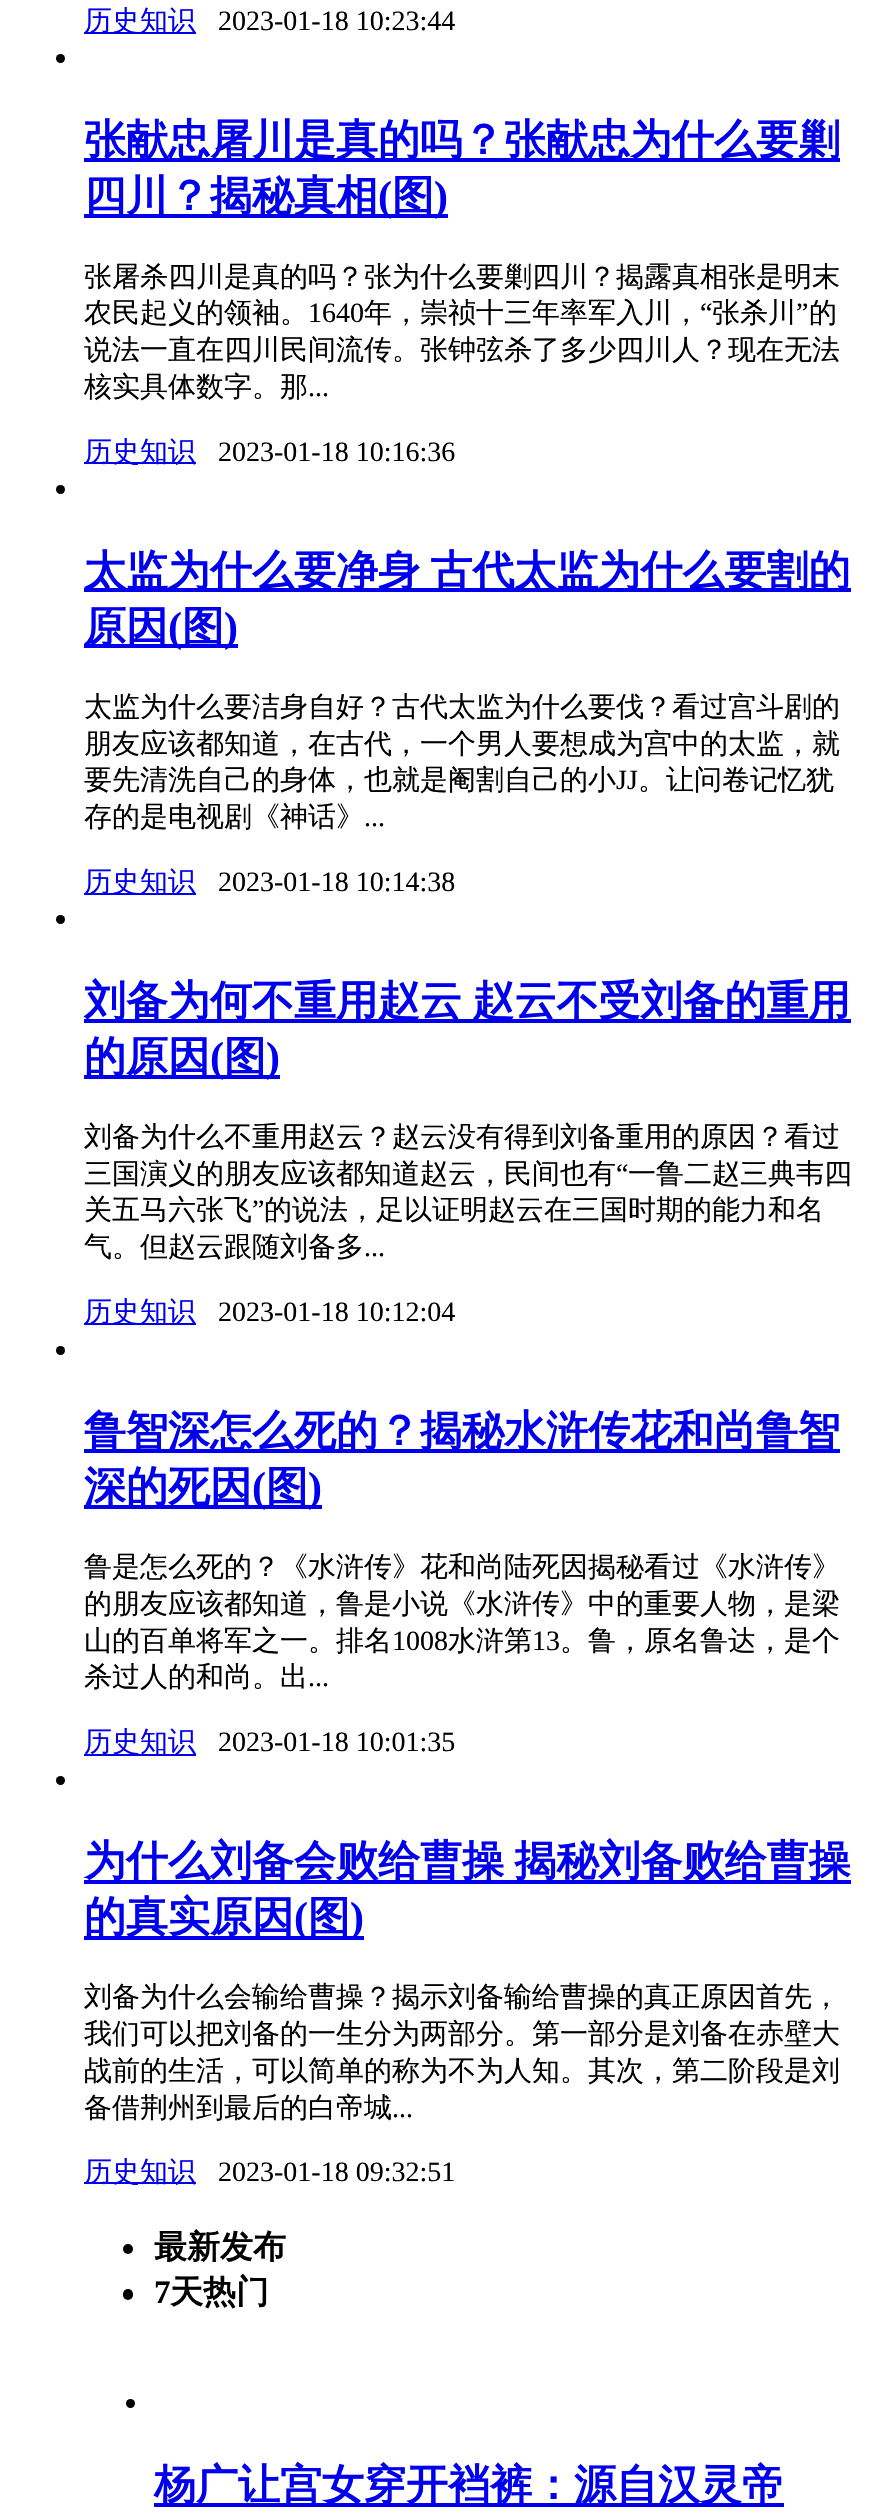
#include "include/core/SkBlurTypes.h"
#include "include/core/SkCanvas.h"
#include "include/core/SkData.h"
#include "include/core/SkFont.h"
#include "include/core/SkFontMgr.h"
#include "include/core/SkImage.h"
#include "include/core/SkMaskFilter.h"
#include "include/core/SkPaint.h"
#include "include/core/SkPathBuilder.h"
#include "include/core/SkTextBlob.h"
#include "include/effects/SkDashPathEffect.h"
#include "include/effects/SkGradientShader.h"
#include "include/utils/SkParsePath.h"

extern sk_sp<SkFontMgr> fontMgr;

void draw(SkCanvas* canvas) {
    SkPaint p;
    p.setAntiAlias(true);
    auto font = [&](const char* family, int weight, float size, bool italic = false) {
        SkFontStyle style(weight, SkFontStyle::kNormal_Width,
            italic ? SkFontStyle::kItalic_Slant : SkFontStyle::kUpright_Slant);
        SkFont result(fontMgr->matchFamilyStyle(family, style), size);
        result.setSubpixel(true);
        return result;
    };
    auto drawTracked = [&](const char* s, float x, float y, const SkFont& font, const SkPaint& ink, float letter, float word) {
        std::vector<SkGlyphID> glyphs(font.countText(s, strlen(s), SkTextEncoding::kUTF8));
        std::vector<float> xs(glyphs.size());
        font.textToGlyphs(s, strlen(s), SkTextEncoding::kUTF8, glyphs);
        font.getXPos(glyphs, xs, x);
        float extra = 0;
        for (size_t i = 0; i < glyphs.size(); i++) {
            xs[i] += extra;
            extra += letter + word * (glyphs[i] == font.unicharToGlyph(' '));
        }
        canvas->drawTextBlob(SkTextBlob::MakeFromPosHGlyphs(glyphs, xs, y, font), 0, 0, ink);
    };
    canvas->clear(0xFFFFFFFF);
    p.setColor(0xFF0000EE);
    canvas->drawRect(SkRect::MakeLTRB(84, 32, 196, 34), p);
    auto font1 = font("WenQuanYi Zen Hei", 500, 28);
    canvas->drawString("历史知识", 84, 30, font1, p);
    auto font2 = font("Liberation Serif", 400, 28);
    p.setColor(0xFF000000);
    canvas->drawString("2023-01-18 10:23:44", 218, 30, font2, p);
    canvas->drawCircle(60.5f, 58.5f, 4.5f, p);
    p.setColor(0xFF0000EE);
    canvas->drawRect(SkRect::MakeLTRB(84, 158, 840, 162), p);
    auto font3 = font("WenQuanYi Zen Hei", 700, 42);
    canvas->drawString("张献忠屠川是真的吗？张献忠为什么要剿", 84, 154, font3, p);
    canvas->drawRect(SkRect::MakeLTRB(84, 214, 448, 218), p);
    canvas->drawString("四川？揭秘真相", 84, 210, font3, p);
    auto font4 = font("Liberation Serif", 700, 42);
    canvas->drawString("(", 378, 210, font4, p);
    canvas->drawString("图", 392, 210, font3, p);
    canvas->drawString(")", 434, 210, font4, p);
    p.setColor(0xFF000000);
    canvas->drawString("张屠杀四川是真的吗？张为什么要剿四川？揭露真相张是明末", 84, 286, font1, p);
    canvas->drawString("农民起义的领袖。", 84, 322, font1, p);
    canvas->drawString("1640", 308, 322, font2, p);
    canvas->drawString("年，崇祯十三年率军入川，", 364, 322, font1, p);
    canvas->drawString("“", 700, 322, font2, p);
    canvas->drawString("张杀川", 712, 322, font1, p);
    canvas->drawString("”", 796, 322, font2, p);
    {
        const struct { const char* s; float x, y; } items[] = {
            {"的", 809, 322},
            {"说法一直在四川民间流传。张钟弦杀了多少四川人？现在无法", 84, 359},
            {"核实具体数字。那", 84, 396},
        };
        for (auto [s, x, y] : items) {
            canvas->drawString(s, x, y, font1, p);
        }
    }
    canvas->drawString("...", 308, 396, font2, p);
    p.setColor(0xFF0000EE);
    canvas->drawRect(SkRect::MakeLTRB(84, 462, 196, 464), p);
    canvas->drawString("历史知识", 84, 461, font1, p);
    p.setColor(0xFF000000);
    canvas->drawString("2023-01-18 10:16:36", 218, 461, font2, p);
    canvas->drawCircle(60.5f, 489.5f, 4.5f, p);
    p.setColor(0xFF0000EE);
    canvas->drawRect(SkRect::MakeLTRB(84, 588, 851, 592), p);
    drawTracked("太监为什么要净身 古代太监为什么要割的", 84, 585, font3, p, 0, -2);
    canvas->drawRect(SkRect::MakeLTRB(84, 644, 238, 648), p);
    canvas->drawString("原因", 84, 641, font3, p);
    canvas->drawString("(", 168, 641, font4, p);
    canvas->drawString("图", 182, 641, font3, p);
    canvas->drawString(")", 224, 641, font4, p);
    p.setColor(0xFF000000);
    {
        const struct { const char* s; float x, y; } items[] = {
            {"太监为什么要洁身自好？古代太监为什么要伐？看过宫斗剧的", 84, 716},
            {"朋友应该都知道，在古代，一个男人要想成为宫中的太监，就", 84, 753},
            {"要先清洗自己的身体，也就是阉割自己的小", 84, 789},
        };
        for (auto [s, x, y] : items) {
            canvas->drawString(s, x, y, font1, p);
        }
    }
    canvas->drawString("JJ", 616, 789, font2, p);
    canvas->drawString("。让问卷记忆犹", 638, 789, font1, p);
    canvas->drawString("存的是电视剧《神话》", 84, 826, font1, p);
    canvas->drawString("...", 364, 826, font2, p);
    p.setColor(0xFF0000EE);
    canvas->drawRect(SkRect::MakeLTRB(84, 893, 196, 895), p);
    canvas->drawString("历史知识", 84, 891, font1, p);
    p.setColor(0xFF000000);
    canvas->drawString("2023-01-18 10:14:38", 218, 891, font2, p);
    canvas->drawCircle(60.5f, 919.5f, 4.5f, p);
    p.setColor(0xFF0000EE);
    canvas->drawRect(SkRect::MakeLTRB(84, 1019, 851, 1023), p);
    drawTracked("刘备为何不重用赵云 赵云不受刘备的重用", 84, 1015, font3, p, 0, -2);
    canvas->drawRect(SkRect::MakeLTRB(84, 1075, 280, 1079), p);
    canvas->drawString("的原因", 84, 1071, font3, p);
    canvas->drawString("(", 210, 1071, font4, p);
    canvas->drawString("图", 224, 1071, font3, p);
    canvas->drawString(")", 266, 1071, font4, p);
    p.setColor(0xFF000000);
    canvas->drawString("刘备为什么不重用赵云？赵云没有得到刘备重用的原因？看过", 84, 1146, font1, p);
    canvas->drawString("三国演义的朋友应该都知道赵云，民间也有", 84, 1183, font1, p);
    canvas->drawString("“", 616, 1183, font2, p);
    canvas->drawString("一鲁二赵三典韦四", 628, 1183, font1, p);
    canvas->drawString("关五马六张飞", 84, 1219, font1, p);
    canvas->drawString("”", 252, 1219, font2, p);
    canvas->drawString("的说法，足以证明赵云在三国时期的能力和名", 264, 1219, font1, p);
    canvas->drawString("气。但赵云跟随刘备多", 84, 1256, font1, p);
    canvas->drawString("...", 364, 1256, font2, p);
    p.setColor(0xFF0000EE);
    canvas->drawRect(SkRect::MakeLTRB(84, 1323, 196, 1325), p);
    canvas->drawString("历史知识", 84, 1321, font1, p);
    p.setColor(0xFF000000);
    canvas->drawString("2023-01-18 10:12:04", 218, 1321, font2, p);
    canvas->drawCircle(60.5f, 1350.5f, 4.5f, p);
    p.setColor(0xFF0000EE);
    canvas->drawRect(SkRect::MakeLTRB(84, 1449, 840, 1453), p);
    canvas->drawString("鲁智深怎么死的？揭秘水浒传花和尚鲁智", 84, 1445, font3, p);
    canvas->drawRect(SkRect::MakeLTRB(84, 1505, 322, 1509), p);
    canvas->drawString("深的死因", 84, 1501, font3, p);
    canvas->drawString("(", 252, 1501, font4, p);
    canvas->drawString("图", 266, 1501, font3, p);
    canvas->drawString(")", 308, 1501, font4, p);
    p.setColor(0xFF000000);
    {
        const struct { const char* s; float x, y; } items[] = {
            {"鲁是怎么死的？《水浒传》花和尚陆死因揭秘看过《水浒传》", 84, 1576},
            {"的朋友应该都知道，鲁是小说《水浒传》中的重要人物，是梁", 84, 1613},
            {"山的百单将军之一。排名", 84, 1650},
        };
        for (auto [s, x, y] : items) {
            canvas->drawString(s, x, y, font1, p);
        }
    }
    canvas->drawString("1008", 392, 1650, font2, p);
    canvas->drawString("水浒第", 448, 1650, font1, p);
    canvas->drawString("13", 532, 1650, font2, p);
    canvas->drawString("。鲁，原名鲁达，是个", 560, 1650, font1, p);
    canvas->drawString("杀过人的和尚。出", 84, 1686, font1, p);
    canvas->drawString("...", 308, 1686, font2, p);
    p.setColor(0xFF0000EE);
    canvas->drawRect(SkRect::MakeLTRB(84, 1754, 196, 1756), p);
    canvas->drawString("历史知识", 84, 1751, font1, p);
    p.setColor(0xFF000000);
    canvas->drawString("2023-01-18 10:01:35", 218, 1751, font2, p);
    canvas->drawCircle(60.5f, 1780.5f, 4.5f, p);
    p.setColor(0xFF0000EE);
    canvas->drawRect(SkRect::MakeLTRB(84, 1880, 851, 1884), p);
    drawTracked("为什么刘备会败给曹操 揭秘刘备败给曹操", 84, 1875, font3, p, 0, -2);
    canvas->drawRect(SkRect::MakeLTRB(84, 1936, 364, 1940), p);
    canvas->drawString("的真实原因", 84, 1931, font3, p);
    canvas->drawString("(", 294, 1931, font4, p);
    canvas->drawString("图", 308, 1931, font3, p);
    canvas->drawString(")", 350, 1931, font4, p);
    p.setColor(0xFF000000);
    {
        const struct { const char* s; float x, y; } items[] = {
            {"刘备为什么会输给曹操？揭示刘备输给曹操的真正原因首先，", 84, 2006},
            {"我们可以把刘备的一生分为两部分。第一部分是刘备在赤壁大", 84, 2043},
            {"战前的生活，可以简单的称为不为人知。其次，第二阶段是刘", 84, 2080},
            {"备借荆州到最后的白帝城", 84, 2117},
        };
        for (auto [s, x, y] : items) {
            canvas->drawString(s, x, y, font1, p);
        }
    }
    canvas->drawString("...", 392, 2117, font2, p);
    p.setColor(0xFF0000EE);
    canvas->drawRect(SkRect::MakeLTRB(84, 2182, 196, 2184), p);
    canvas->drawString("历史知识", 84, 2181, font1, p);
    p.setColor(0xFF000000);
    canvas->drawString("2023-01-18 09:32:51", 218, 2181, font2, p);
    canvas->drawCircle(128, 2249, 5, p);
    auto font5 = font("WenQuanYi Zen Hei", 700, 33);
    canvas->drawString("最新发布", 154, 2258, font5, p);
    canvas->drawRoundRect(SkRect::MakeLTRB(123, 2289, 133, 2300), 5, 5, p);
    auto font6 = font("Liberation Serif", 700, 33);
    canvas->drawString("7", 154, 2303, font6, p);
    canvas->drawString("天热门", 170, 2303, font5, p);
    canvas->drawCircle(130.5f, 2403.5f, 4.5f, p);
    p.setColor(0xFF0000EE);
    canvas->drawRect(SkRect::MakeLTRB(154, 2503, 784, 2507), p);
    canvas->drawString("杨广让宫女穿开裆裤：源自汉灵帝", 154, 2499, font3, p);
}
